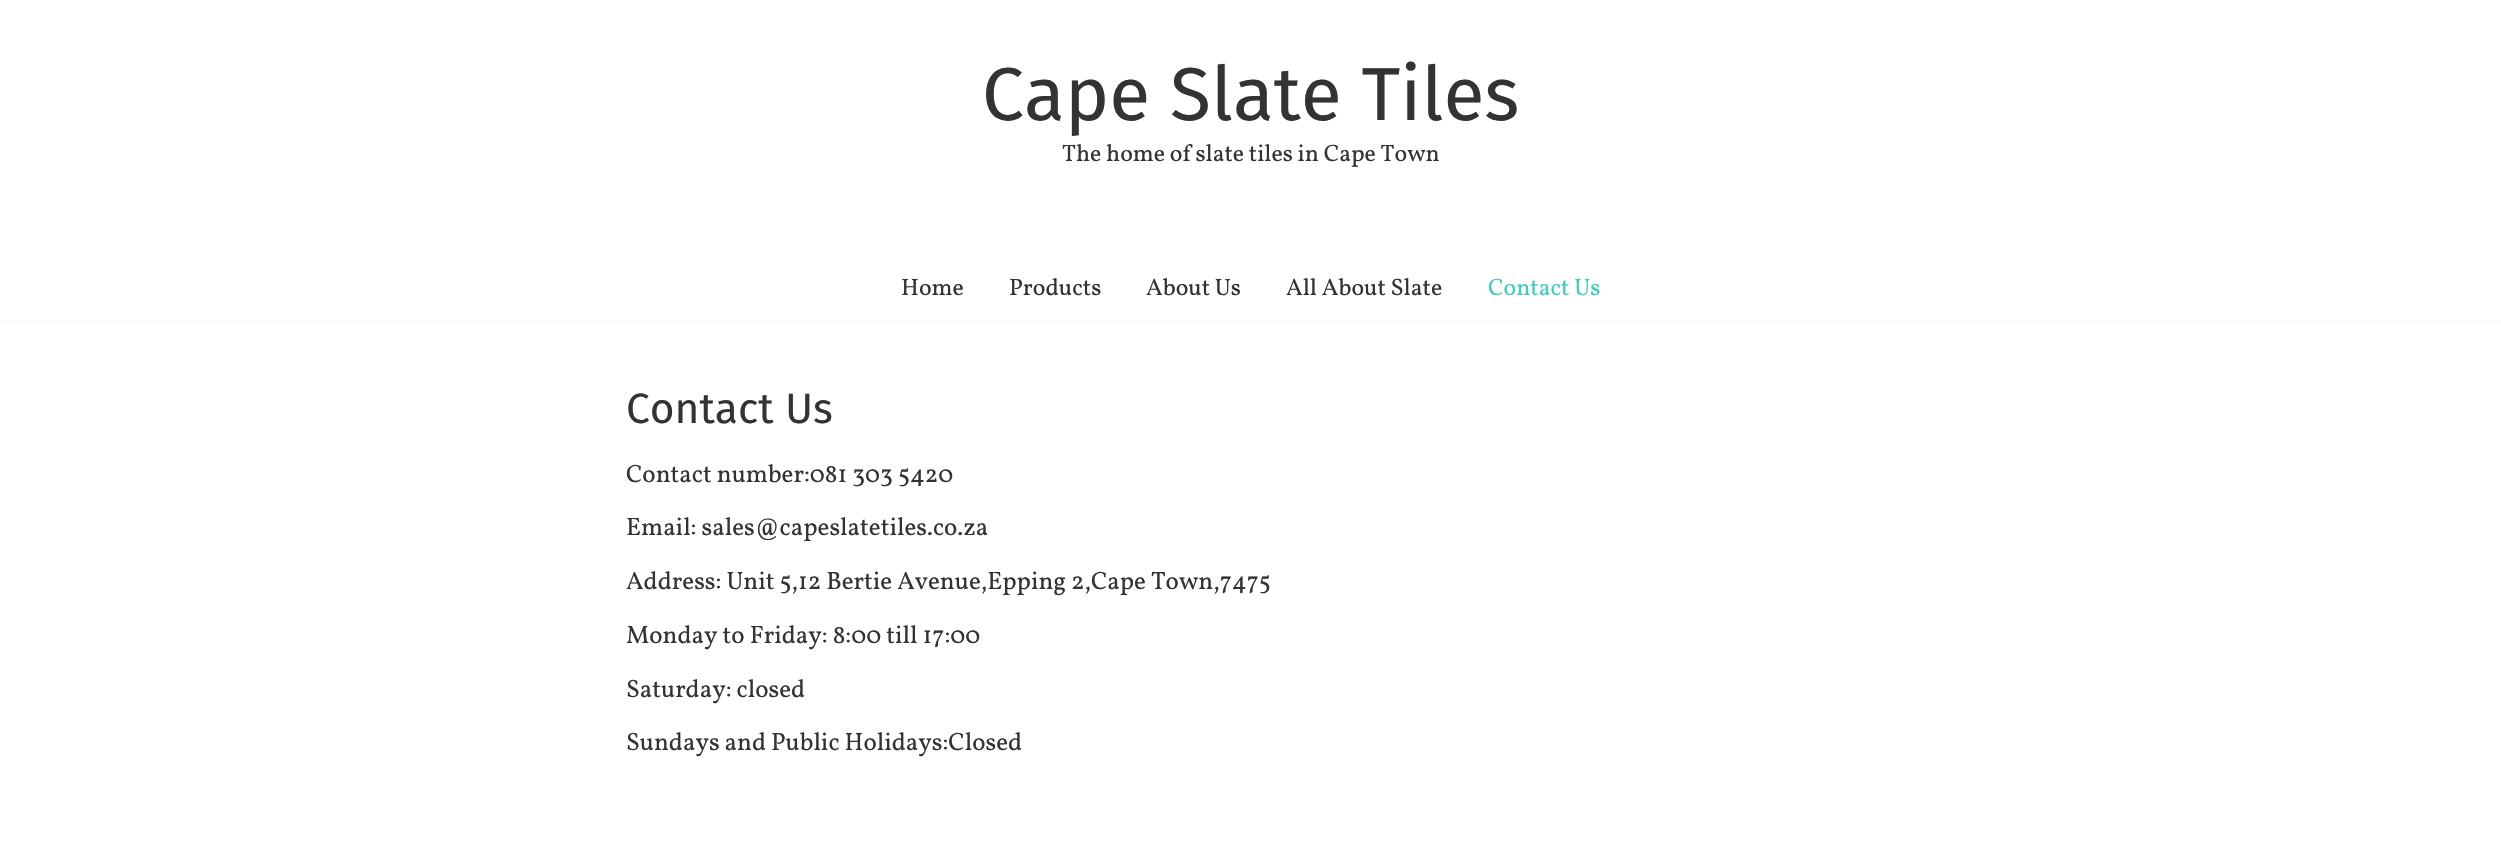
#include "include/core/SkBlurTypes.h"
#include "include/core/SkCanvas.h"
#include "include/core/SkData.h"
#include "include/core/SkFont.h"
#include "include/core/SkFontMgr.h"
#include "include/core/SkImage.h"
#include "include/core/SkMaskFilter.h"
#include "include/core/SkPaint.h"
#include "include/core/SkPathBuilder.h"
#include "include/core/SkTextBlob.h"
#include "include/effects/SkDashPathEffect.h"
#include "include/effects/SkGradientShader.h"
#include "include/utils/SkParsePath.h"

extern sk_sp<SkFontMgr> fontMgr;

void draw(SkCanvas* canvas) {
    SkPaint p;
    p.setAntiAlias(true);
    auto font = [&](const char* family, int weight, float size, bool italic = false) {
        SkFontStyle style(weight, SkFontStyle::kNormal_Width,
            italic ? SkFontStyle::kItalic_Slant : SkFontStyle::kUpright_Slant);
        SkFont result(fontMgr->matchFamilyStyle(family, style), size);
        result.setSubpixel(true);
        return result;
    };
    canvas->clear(0xFFFFFFFF);
    auto font1 = font("Fira Sans", 400, 75);
    p.setColor(0xFF333333);
    canvas->drawString("Cape Slate Tiles", 982, 120, font1, p);
    auto font2 = font("Vollkorn", 400, 23.75f);
    canvas->drawString("The home of slate tiles in Cape Town", 1062, 161, font2, p);
    p.setColor(0xFFF8F8F8);
    canvas->drawRect(SkRect::MakeLTRB(0, 321, 2501, 322), p);
    p.setColor(0xFF333333);
    {
        const struct { const char* s; float x, y; } items[] = {
            {"Home", 901, 295},
            {"Products", 1009, 295},
            {"About Us", 1146, 295},
            {"All About Slate", 1286, 295},
        };
        for (auto [s, x, y] : items) {
            canvas->drawString(s, x, y, font2, p);
        }
    }
    p.setColor(0xFF46C9BE);
    canvas->drawString("Contact Us", 1488, 295, font2, p);
    auto font3 = font("Fira Sans", 400, 42.5f);
    p.setColor(0xFF333333);
    canvas->drawString("Contact Us", 626, 423, font3, p);
    auto font4 = font("Vollkorn", 400, 25);
    {
        const struct { const char* s; float x, y; } items[] = {
            {"Contact number:081 303 5420", 626, 482},
            {"Email: sales@capeslatetiles.co.za", 626, 535},
            {"Address: Unit 5,12 Bertie Avenue,Epping 2,Cape Town,7475", 626, 589},
            {"Monday to Friday: 8:00 till 17:00", 626, 643},
            {"Saturday: closed", 626, 697},
            {"Sundays and Public Holidays:Closed", 626, 750},
        };
        for (auto [s, x, y] : items) {
            canvas->drawString(s, x, y, font4, p);
        }
    }
}
